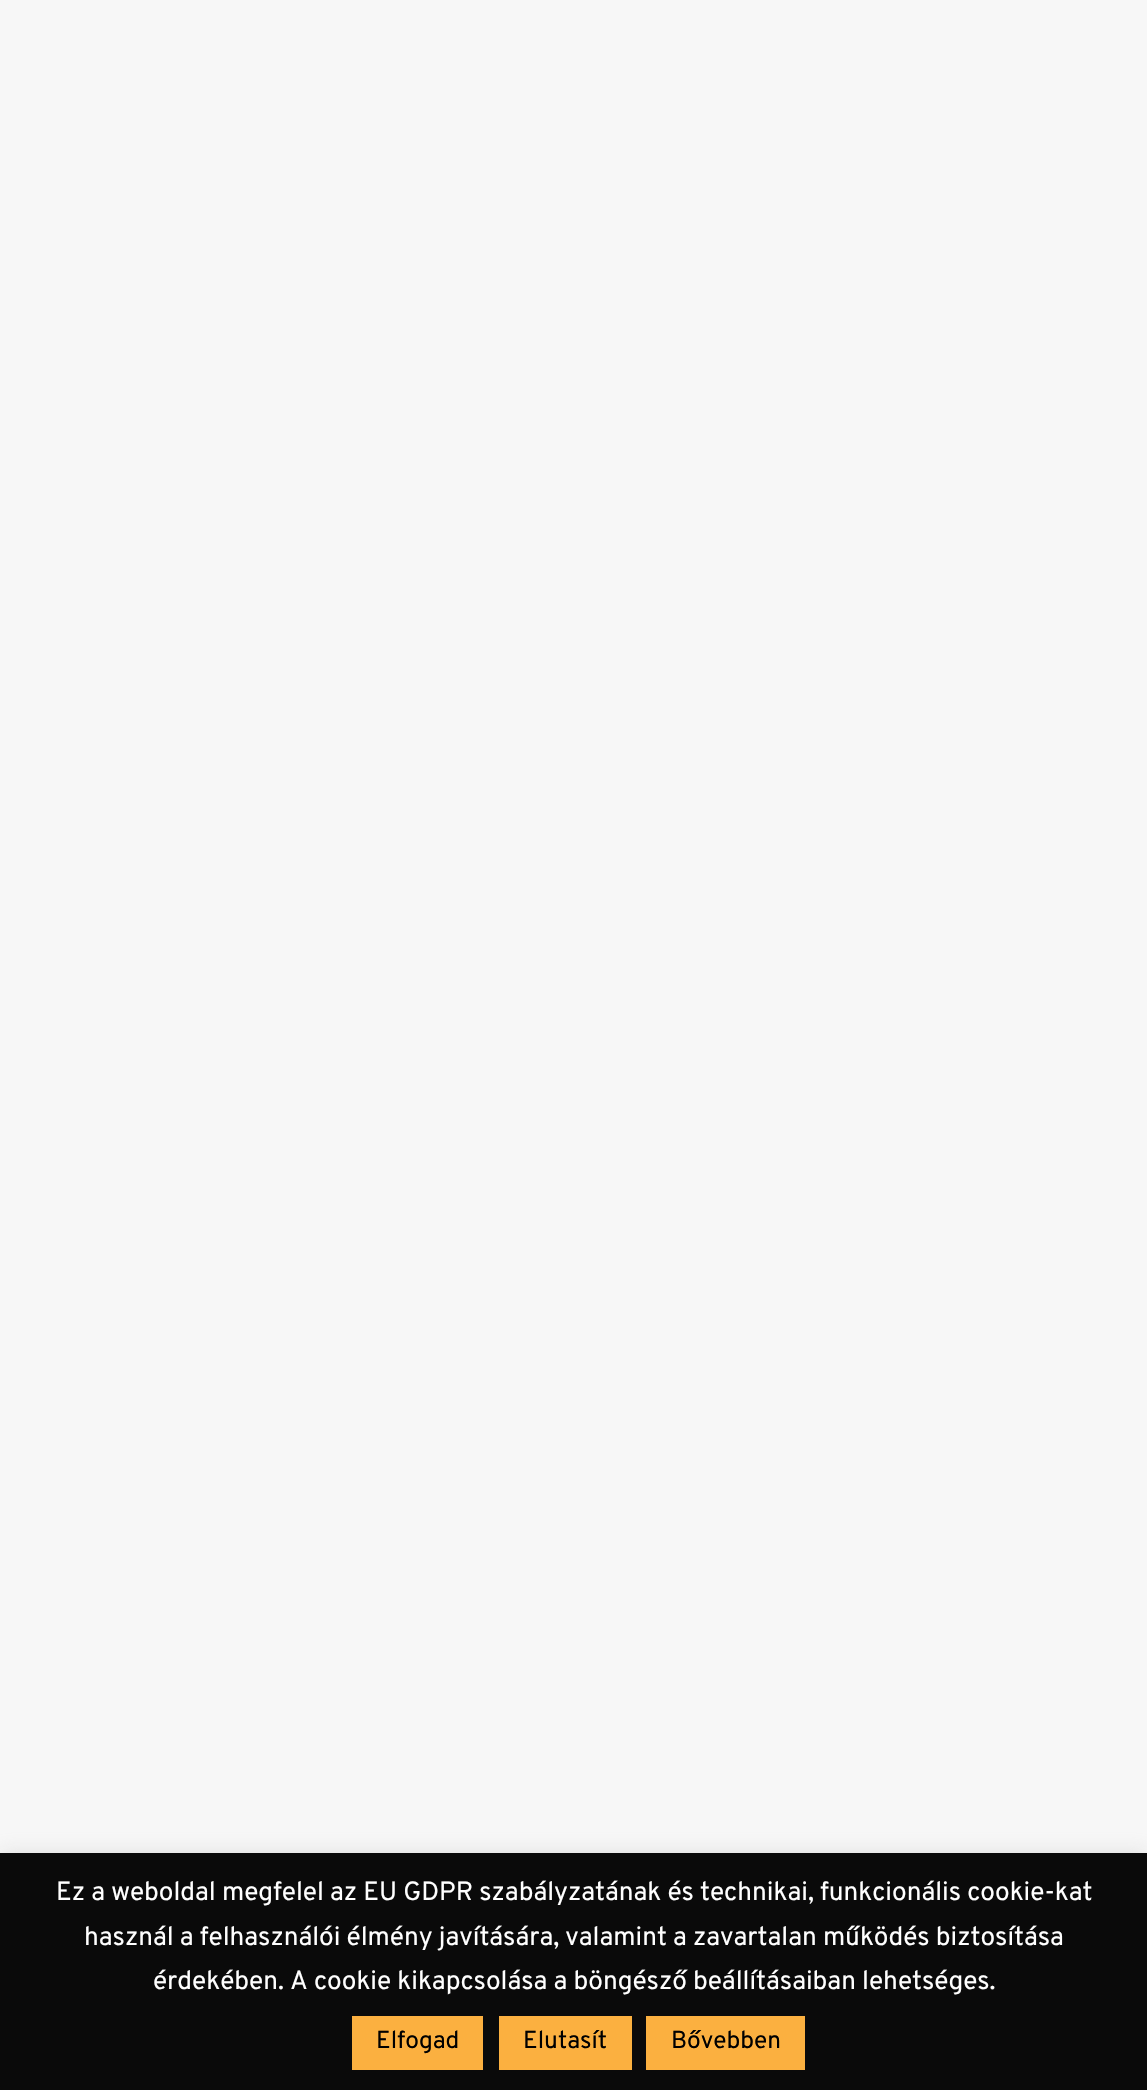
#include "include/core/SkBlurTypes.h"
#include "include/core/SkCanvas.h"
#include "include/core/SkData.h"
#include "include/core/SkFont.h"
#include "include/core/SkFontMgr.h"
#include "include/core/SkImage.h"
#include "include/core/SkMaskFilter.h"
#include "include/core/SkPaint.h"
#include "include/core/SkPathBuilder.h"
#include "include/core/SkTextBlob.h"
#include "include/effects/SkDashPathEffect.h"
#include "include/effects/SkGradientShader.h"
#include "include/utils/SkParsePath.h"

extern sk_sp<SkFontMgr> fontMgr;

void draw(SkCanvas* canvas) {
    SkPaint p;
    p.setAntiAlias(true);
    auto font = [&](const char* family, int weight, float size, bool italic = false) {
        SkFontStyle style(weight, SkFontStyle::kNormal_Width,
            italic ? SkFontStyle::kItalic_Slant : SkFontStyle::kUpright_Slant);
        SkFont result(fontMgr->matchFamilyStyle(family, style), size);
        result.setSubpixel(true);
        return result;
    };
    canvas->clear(0xFFF7F7F7);
    p.setColor(0x4DACABAB);
    p.setMaskFilter(SkMaskFilter::MakeBlur(kNormal_SkBlurStyle, 9));
    canvas->drawRect(SkRect::MakeLTRB(0, 1852, 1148, 2090), p);
    p.setMaskFilter(nullptr);
    p.setColor(0xFF0A0A0A);
    canvas->drawRect(SkRect::MakeLTRB(0, 1853, 1147, 2090), p);
    auto font1 = font("Overpass", 400, 26.25f);
    p.setColor(0xFFFFFFFF);
    {
        const struct { const char* s; float x, y; } items[] = {
            {"Ez a weboldal megfelel az EU GDPR szabályzatának és technikai, funkcionális cookie-kat", 56, 1900},
            {"használ a felhasználói élmény javítására, valamint a zavartalan működés biztosítása", 84, 1945},
            {"érdekében. A cookie kikapcsolása a böngésző beállításaiban lehetséges.", 153, 1989},
        };
        for (auto [s, x, y] : items) {
            canvas->drawString(s, x, y, font1, p);
        }
    }
    p.setColor(0xFFFBB040);
    canvas->drawRect(SkRect::MakeLTRB(352, 2016, 483, 2070), p);
    auto font2 = font("Overpass", 400, 24.5f);
    p.setColor(0xFF000000);
    canvas->drawString("Elfogad", 376, 2048, font2, p);
    p.setColor(0xFFFBB040);
    canvas->drawRect(SkRect::MakeLTRB(499, 2016, 632, 2070), p);
    p.setColor(0xFF000000);
    canvas->drawString("Elutasít", 523, 2048, font2, p);
    p.setColor(0xFFFBB040);
    canvas->drawRect(SkRect::MakeLTRB(646, 2016, 805, 2070), p);
    p.setColor(0xFF000000);
    canvas->drawString("Bővebben", 671, 2048, font2, p);
}
